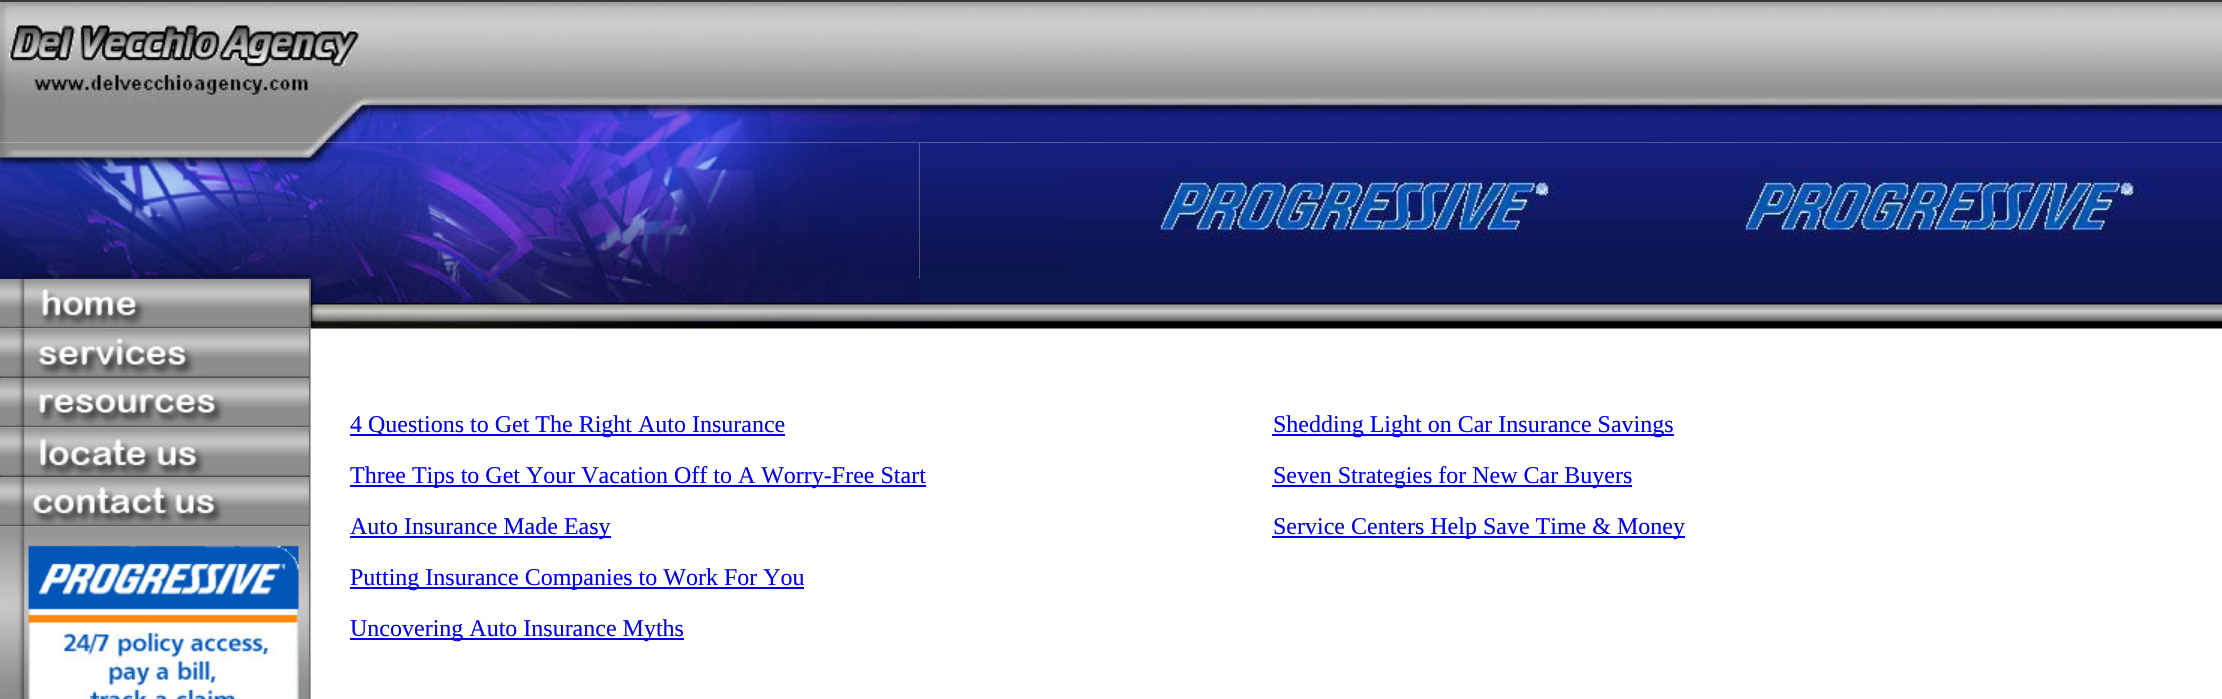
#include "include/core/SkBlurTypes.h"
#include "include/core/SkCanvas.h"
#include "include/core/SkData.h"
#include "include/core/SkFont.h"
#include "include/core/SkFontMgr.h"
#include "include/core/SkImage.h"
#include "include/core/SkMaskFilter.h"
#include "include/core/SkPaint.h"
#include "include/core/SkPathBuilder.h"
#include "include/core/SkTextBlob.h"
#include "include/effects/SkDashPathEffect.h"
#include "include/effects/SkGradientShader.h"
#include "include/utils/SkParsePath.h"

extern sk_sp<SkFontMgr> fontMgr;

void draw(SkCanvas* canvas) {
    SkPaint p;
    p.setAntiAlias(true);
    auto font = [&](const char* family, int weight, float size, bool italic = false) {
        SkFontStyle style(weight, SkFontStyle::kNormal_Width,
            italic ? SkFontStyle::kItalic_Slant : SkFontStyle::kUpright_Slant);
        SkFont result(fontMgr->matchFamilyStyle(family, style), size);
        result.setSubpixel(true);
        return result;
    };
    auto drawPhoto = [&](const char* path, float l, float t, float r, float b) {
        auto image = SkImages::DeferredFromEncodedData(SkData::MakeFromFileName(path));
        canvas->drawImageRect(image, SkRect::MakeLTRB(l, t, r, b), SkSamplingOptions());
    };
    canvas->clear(0xFFFFFFFF);
    p.setColor(0xFF393939);
    canvas->drawRect(SkRect::MakeLTRB(0, 0, 2222, 2), p);
    drawPhoto("media/1.png", 0, 2, 369, 143);
    drawPhoto("media/3.png", 921, 2, 2222, 143);
    drawPhoto("media/5.png", 919, 142, 1065, 279);
    drawPhoto("media/2.png", 369, 2, 921, 143);
    drawPhoto("media/4.png", 0, 142, 920, 279);
    drawPhoto("media/6.png", 1065, 142, 2222, 279);
    drawPhoto("media/7.png", 0, 279, 311, 329);
    drawPhoto("media/8.png", 310, 279, 951, 329);
    drawPhoto("media/9.png", 951, 279, 2222, 329);
    drawPhoto("media/10.png", 0, 328, 311, 378);
    drawPhoto("media/11.png", 0, 378, 311, 428);
    drawPhoto("media/12.png", 0, 427, 311, 477);
    drawPhoto("media/13.png", 0, 477, 311, 527);
    drawPhoto("media/14.png", 0, 526, 311, 699);
    p.setColor(0xFF0000EE);
    canvas->drawRect(SkRect::MakeLTRB(350, 434, 785, 436), p);
    auto font1 = font("Liberation Serif", 400, 24);
    canvas->drawString("4 Questions to Get The Right Auto Insurance", 350, 432, font1, p);
    canvas->drawRect(SkRect::MakeLTRB(350, 485, 926, 487), p);
    canvas->drawString("Three Tips to Get Your Vacation Off to A Worry-Free Start", 350, 483, font1, p);
    canvas->drawRect(SkRect::MakeLTRB(350, 536, 611, 538), p);
    canvas->drawString("Auto Insurance Made Easy", 350, 534, font1, p);
    canvas->drawRect(SkRect::MakeLTRB(350, 587, 804, 589), p);
    canvas->drawString("Putting Insurance Companies to Work For You", 350, 585, font1, p);
    canvas->drawRect(SkRect::MakeLTRB(350, 638, 684, 640), p);
    canvas->drawString("Uncovering Auto Insurance Myths", 350, 636, font1, p);
    canvas->drawRect(SkRect::MakeLTRB(1272, 434, 1674, 436), p);
    canvas->drawString("Shedding Light on Car Insurance Savings", 1273, 432, font1, p);
    canvas->drawRect(SkRect::MakeLTRB(1272, 485, 1632, 487), p);
    canvas->drawString("Seven Strategies for New Car Buyers", 1273, 483, font1, p);
    canvas->drawRect(SkRect::MakeLTRB(1272, 536, 1685, 538), p);
    canvas->drawString("Service Centers Help Save Time & Money", 1273, 534, font1, p);
}
